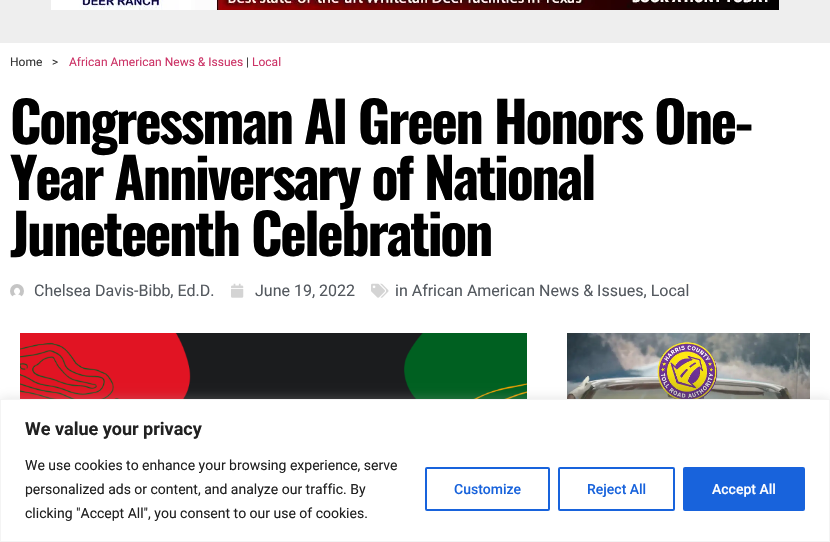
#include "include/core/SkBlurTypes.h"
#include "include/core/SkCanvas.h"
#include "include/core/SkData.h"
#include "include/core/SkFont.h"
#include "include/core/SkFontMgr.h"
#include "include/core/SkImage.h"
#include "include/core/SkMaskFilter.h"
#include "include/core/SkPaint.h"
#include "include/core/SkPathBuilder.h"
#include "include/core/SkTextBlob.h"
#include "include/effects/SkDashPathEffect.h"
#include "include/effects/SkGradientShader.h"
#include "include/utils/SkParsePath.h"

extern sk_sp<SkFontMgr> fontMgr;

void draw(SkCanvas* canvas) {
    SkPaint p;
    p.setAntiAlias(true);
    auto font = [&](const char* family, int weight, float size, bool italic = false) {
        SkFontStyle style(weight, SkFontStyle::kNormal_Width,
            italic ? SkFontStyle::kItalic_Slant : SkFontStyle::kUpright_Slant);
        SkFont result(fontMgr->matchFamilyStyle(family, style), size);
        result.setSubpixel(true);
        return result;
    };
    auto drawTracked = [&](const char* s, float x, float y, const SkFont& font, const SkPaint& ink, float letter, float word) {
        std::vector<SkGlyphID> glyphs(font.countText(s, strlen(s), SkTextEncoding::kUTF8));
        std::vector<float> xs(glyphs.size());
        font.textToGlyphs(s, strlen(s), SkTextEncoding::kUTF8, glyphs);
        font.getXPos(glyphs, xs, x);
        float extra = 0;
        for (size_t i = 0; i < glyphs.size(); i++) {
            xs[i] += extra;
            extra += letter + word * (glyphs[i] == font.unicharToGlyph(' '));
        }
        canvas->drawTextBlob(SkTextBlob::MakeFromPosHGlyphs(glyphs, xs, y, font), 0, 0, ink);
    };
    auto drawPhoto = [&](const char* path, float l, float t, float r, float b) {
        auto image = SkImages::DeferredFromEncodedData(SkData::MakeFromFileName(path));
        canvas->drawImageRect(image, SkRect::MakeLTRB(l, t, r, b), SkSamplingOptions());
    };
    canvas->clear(0xFFFFFFFF);
    p.setColor(0xFFEEEEEE);
    canvas->drawRect(SkRect::MakeLTRB(0, 0, 830, 43), p);
    drawPhoto("media/1.png", 51, 0, 779, 10);
    auto font1 = font("Heebo", 400, 12);
    p.setColor(0xFF363636);
    canvas->drawString("Home", 10, 66, font1, p);
    canvas->drawString(">", 52, 66, font1, p);
    p.setColor(0xFFCC3366);
    canvas->drawString("African American News & Issues", 69, 66, font1, p);
    p.setColor(0xFF363636);
    canvas->drawString("|", 246, 66, font1, p);
    p.setColor(0xFFCC3366);
    canvas->drawString("Local", 252, 66, font1, p);
    auto font2 = font("Oswald", 700, 56);
    p.setColor(0xFF000000);
    {
        const struct { const char* s; float x, y; } items[] = {
            {"Congressman Al Green Honors One-", 10, 144},
            {"Year Anniversary of National", 10, 200},
            {"Juneteenth Celebration", 10, 256},
        };
        for (auto [s, x, y] : items) {
            drawTracked(s, x, y, font2, p, -2.25f, 0);
        }
    }
    drawPhoto("media/2.png", 10, 284, 24, 297);
    auto font3 = font("Roboto", 400, 16);
    p.setColor(0xFF54595F);
    canvas->drawString("Chelsea Davis-Bibb, Ed.D.", 34, 296, font3, p);
    drawPhoto("media/3.png", 231, 283, 244, 298);
    canvas->drawString("June 19, 2022", 255, 296, font3, p);
    drawPhoto("media/4.png", 371, 283, 389, 298);
    canvas->drawString("in African American News & Issues, Local", 395, 296, font3, p);
    drawPhoto("media/5.png", 20, 333, 527, 399);
    drawPhoto("media/6.png", 567, 333, 810, 399);
    p.setColor(0x4DACABAB);
    p.setMaskFilter(SkMaskFilter::MakeBlur(kNormal_SkBlurStyle, 5));
    canvas->drawRect(SkRect::MakeLTRB(0, 398, 830, 541), p);
    p.setMaskFilter(nullptr);
    p.setColor(0xFFFFFFFF);
    canvas->drawRect(SkRect::MakeLTRB(0.5f, 399.5f, 829.5f, 541.5f), p);
    p.setStyle(SkPaint::kStroke_Style);
    p.setStrokeWidth(1);
    p.setColor(0xFFF4F4F4);
    canvas->drawRect(SkRect::MakeLTRB(0.5f, 399.5f, 829.5f, 541.5f), p);
    auto font4 = font("Roboto", 700, 18);
    p.setStyle(SkPaint::kFill_Style);
    p.setColor(0xFF212121);
    canvas->drawString("We value your privacy", 25, 435, font4, p);
    auto font5 = font("Roboto", 400, 14);
    {
        const struct { const char* s; float x, y; } items[] = {
            {"We use cookies to enhance your browsing experience, serve", 25, 470},
            {"personalized ads or content, and analyze our traffic. By", 25, 494},
            {"clicking \"Accept All\", you consent to our use of cookies.", 25, 518},
        };
        for (auto [s, x, y] : items) {
            canvas->drawString(s, x, y, font5, p);
        }
    }
    p.setStyle(SkPaint::kStroke_Style);
    p.setStrokeWidth(2);
    p.setColor(0xFF1863DC);
    canvas->drawRoundRect(SkRect::MakeLTRB(426, 468, 549, 510), 1, 1, p);
    auto font6 = font("Roboto", 500, 14);
    p.setStyle(SkPaint::kFill_Style);
    canvas->drawString("Customize", 454, 494, font6, p);
    p.setStyle(SkPaint::kStroke_Style);
    canvas->drawRoundRect(SkRect::MakeLTRB(559, 468, 674, 510), 1, 1, p);
    p.setStyle(SkPaint::kFill_Style);
    canvas->drawString("Reject All", 587, 494, font6, p);
    canvas->drawRoundRect(SkRect::MakeLTRB(684, 468, 804, 510), 1, 1, p);
    p.setStyle(SkPaint::kStroke_Style);
    canvas->drawRoundRect(SkRect::MakeLTRB(684, 468, 804, 510), 1, 1, p);
    p.setStyle(SkPaint::kFill_Style);
    p.setColor(0xFFFFFFFF);
    canvas->drawString("Accept All", 712, 494, font6, p);
}
